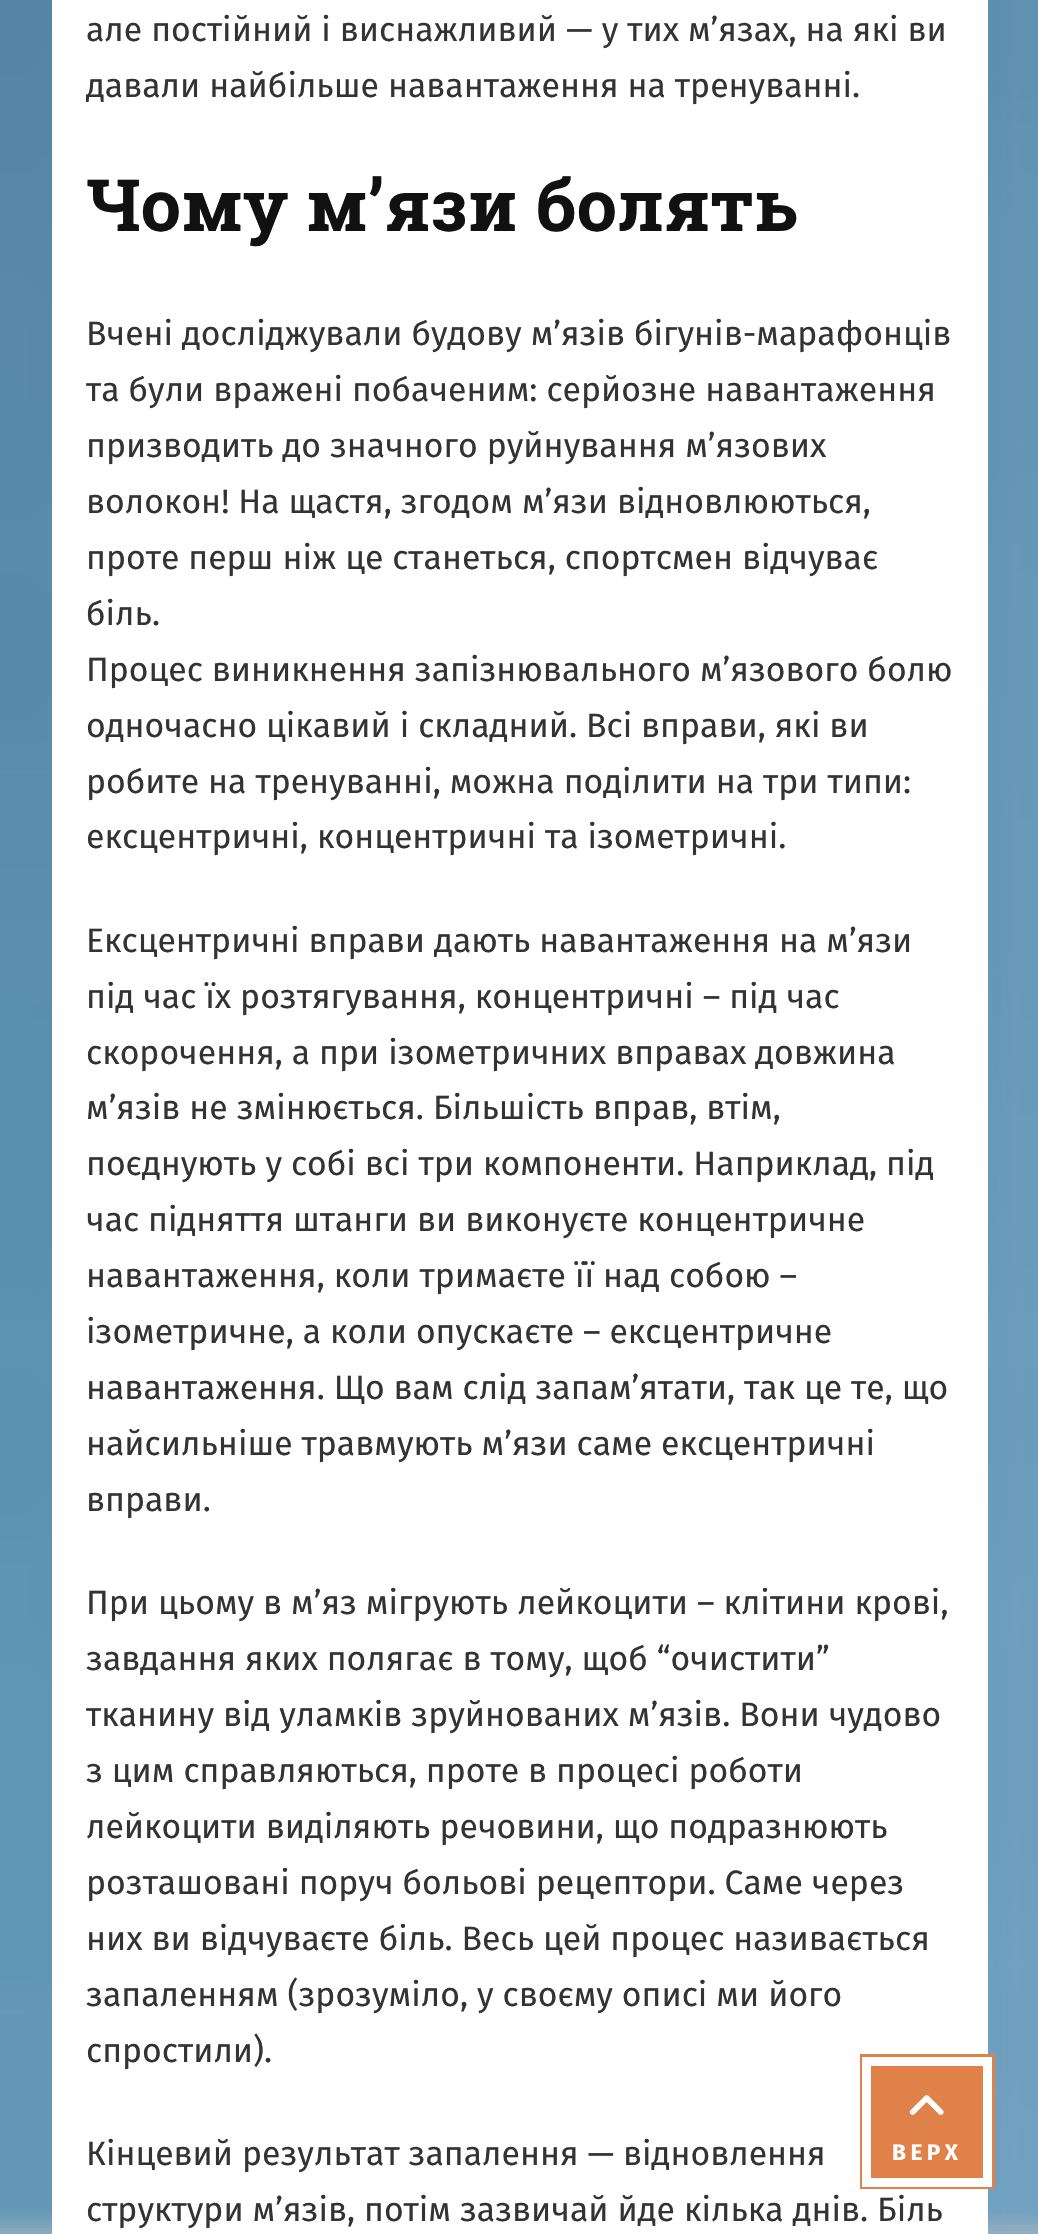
#include "include/core/SkBlurTypes.h"
#include "include/core/SkCanvas.h"
#include "include/core/SkData.h"
#include "include/core/SkFont.h"
#include "include/core/SkFontMgr.h"
#include "include/core/SkImage.h"
#include "include/core/SkMaskFilter.h"
#include "include/core/SkPaint.h"
#include "include/core/SkPathBuilder.h"
#include "include/core/SkTextBlob.h"
#include "include/effects/SkDashPathEffect.h"
#include "include/effects/SkGradientShader.h"
#include "include/utils/SkParsePath.h"

extern sk_sp<SkFontMgr> fontMgr;

void draw(SkCanvas* canvas) {
    SkPaint p;
    p.setAntiAlias(true);
    auto font = [&](const char* family, int weight, float size, bool italic = false) {
        SkFontStyle style(weight, SkFontStyle::kNormal_Width,
            italic ? SkFontStyle::kItalic_Slant : SkFontStyle::kUpright_Slant);
        SkFont result(fontMgr->matchFamilyStyle(family, style), size);
        result.setSubpixel(true);
        return result;
    };
    auto drawTracked = [&](const char* s, float x, float y, const SkFont& font, const SkPaint& ink, float letter, float word) {
        std::vector<SkGlyphID> glyphs(font.countText(s, strlen(s), SkTextEncoding::kUTF8));
        std::vector<float> xs(glyphs.size());
        font.textToGlyphs(s, strlen(s), SkTextEncoding::kUTF8, glyphs);
        font.getXPos(glyphs, xs, x);
        float extra = 0;
        for (size_t i = 0; i < glyphs.size(); i++) {
            xs[i] += extra;
            extra += letter + word * (glyphs[i] == font.unicharToGlyph(' '));
        }
        canvas->drawTextBlob(SkTextBlob::MakeFromPosHGlyphs(glyphs, xs, y, font), 0, 0, ink);
    };
    auto drawPhoto = [&](const char* path, float l, float t, float r, float b) {
        auto image = SkImages::DeferredFromEncodedData(SkData::MakeFromFileName(path));
        canvas->drawImageRect(image, SkRect::MakeLTRB(l, t, r, b), SkSamplingOptions());
    };
    canvas->clear(0xFFBFBFBF);
    drawPhoto("media/1.png", 0, 0, 1038, 2234);
    p.setColor(0xFFFFFFFF);
    canvas->drawRect(SkRect::MakeLTRB(52, 0, 988, 2234), p);
    auto font1 = font("Fira Sans", 400, 33.75f);
    p.setColor(0xFF333333);
    canvas->drawString("але постійний і виснажливий — у тих м’язах, на які ви", 86, 41, font1, p);
    canvas->save();
    canvas->clipRect(SkRect::MakeLTRB(86, 0, 954, 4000));
    canvas->drawString("давали найбільше навантаження на тренуванні.", 86, 97, font1, p);
    canvas->restore();
    auto font2 = font("Roboto Slab", 700, 72);
    p.setColor(0xFF111111);
    canvas->drawString("Чому м’язи болять", 86, 231, font2, p);
    p.setColor(0xFF333333);
    canvas->drawString("Вчені досліджували будову м’язів бігунів-марафонців", 86, 345, font1, p);
    canvas->save();
    canvas->clipRect(SkRect::MakeLTRB(86, 0, 954, 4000));
    canvas->drawString("та були вражені побаченим: серйозне навантаження", 86, 401, font1, p);
    canvas->restore();
    {
        const struct { const char* s; float x, y; } items[] = {
            {"призводить до значного руйнування м’язових", 86, 457},
            {"волокон! На щастя, згодом м’язи відновлюються,", 86, 513},
            {"проте перш ніж це станеться, спортсмен відчуває", 86, 569},
            {"біль.", 86, 625},
            {"Процес виникнення запізнювального м’язового болю", 86, 681},
            {"одночасно цікавий і складний. Всі вправи, які ви", 86, 737},
            {"робите на тренуванні, можна поділити на три типи:", 86, 793},
            {"ексцентричні, концентричні та ізометричні.", 86, 848},
            {"Ексцентричні вправи дають навантаження на м’язи", 86, 952},
            {"під час їх розтягування, концентричні – під час", 86, 1008},
            {"скорочення, а при ізометричних вправах довжина", 86, 1064},
            {"м’язів не змінюється. Більшість вправ, втім,", 86, 1119},
            {"поєднують у собі всі три компоненти. Наприклад, під", 86, 1175},
            {"час підняття штанги ви виконуєте концентричне", 86, 1231},
            {"навантаження, коли тримаєте її над собою –", 86, 1287},
            {"ізометричне, а коли опускаєте – ексцентричне", 86, 1343},
            {"навантаження. Що вам слід запам’ятати, так це те, що", 86, 1399},
            {"найсильніше травмують м’язи саме ексцентричні", 86, 1455},
            {"вправи.", 86, 1511},
            {"При цьому в м’яз мігрують лейкоцити – клітини крові,", 86, 1614},
            {"завдання яких полягає в тому, щоб “очистити”", 86, 1670},
        };
        for (auto [s, x, y] : items) {
            canvas->drawString(s, x, y, font1, p);
        }
    }
    canvas->save();
    canvas->clipRect(SkRect::MakeLTRB(86, 0, 954, 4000));
    canvas->drawString("тканину від уламків зруйнованих м’язів. Вони чудово", 86, 1726, font1, p);
    canvas->restore();
    {
        const struct { const char* s; float x, y; } items[] = {
            {"з цим справляються, проте в процесі роботи", 86, 1782},
            {"лейкоцити виділяють речовини, що подразнюють", 86, 1838},
            {"розташовані поруч больові рецептори. Саме через", 86, 1894},
            {"них ви відчуваєте біль. Весь цей процес називається", 86, 1950},
            {"запаленням (зрозуміло, у своєму описі ми його", 86, 2006},
            {"спростили).", 86, 2062},
            {"Кінцевий результат запалення — відновлення", 86, 2165},
            {"структури м’язів, потім зазвичай йде кілька днів. Біль", 86, 2221},
        };
        for (auto [s, x, y] : items) {
            canvas->drawString(s, x, y, font1, p);
        }
    }
    p.setColor(0xFFE0814A);
    canvas->drawRect(SkRect::MakeLTRB(860, 2054, 995, 2189), p);
    drawPhoto("media/2.png", 909, 2095, 944, 2115);
    p.setStyle(SkPaint::kStroke_Style);
    p.setStrokeWidth(9);
    p.setColor(0xFFFFFFFF);
    canvas->drawRect(SkRect::MakeLTRB(866.5f, 2061.5f, 987.5f, 2182.5f), p);
    auto font3 = font("Fira Sans", 700, 22.5f);
    p.setStyle(SkPaint::kFill_Style);
    drawTracked("ВЕРХ", 892, 2160, font3, p, 4.5f, 0);
}
